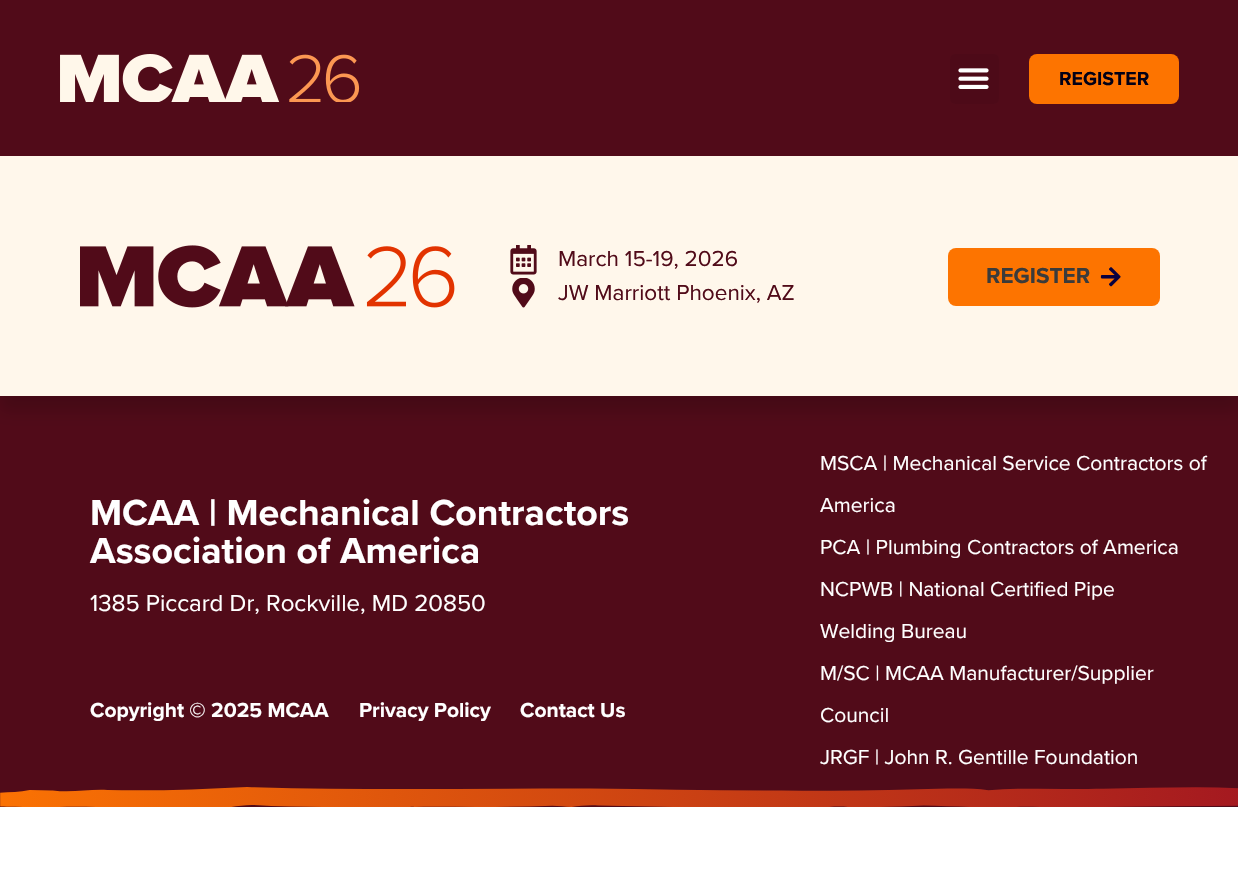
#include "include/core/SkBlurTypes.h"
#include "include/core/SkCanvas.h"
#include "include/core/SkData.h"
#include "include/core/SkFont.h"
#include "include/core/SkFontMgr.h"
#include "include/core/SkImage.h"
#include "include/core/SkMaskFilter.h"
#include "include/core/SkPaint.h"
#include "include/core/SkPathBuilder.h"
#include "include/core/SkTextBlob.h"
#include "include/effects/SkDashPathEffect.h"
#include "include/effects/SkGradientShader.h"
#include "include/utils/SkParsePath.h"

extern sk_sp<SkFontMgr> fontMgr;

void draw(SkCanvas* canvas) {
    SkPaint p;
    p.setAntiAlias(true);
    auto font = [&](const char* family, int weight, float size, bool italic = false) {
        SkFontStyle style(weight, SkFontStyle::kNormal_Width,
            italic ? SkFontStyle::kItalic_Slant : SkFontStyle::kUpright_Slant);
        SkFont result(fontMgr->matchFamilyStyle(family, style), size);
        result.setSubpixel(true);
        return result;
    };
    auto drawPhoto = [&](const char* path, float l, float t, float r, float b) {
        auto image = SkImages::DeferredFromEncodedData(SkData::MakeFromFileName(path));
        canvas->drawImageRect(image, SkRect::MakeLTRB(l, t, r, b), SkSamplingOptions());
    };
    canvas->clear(0xFFFFFFFF);
    p.setColor(0xFF510B19);
    canvas->drawRect(SkRect::MakeLTRB(0, 0, 1238, 156), p);
    drawPhoto("media/1.png", 60, 54, 360, 102);
    p.setColor(0xFF4D0A18);
    canvas->drawRoundRect(SkRect::MakeLTRB(950, 54, 999, 104), 5, 5, p);
    drawPhoto("media/2.png", 958, 68, 989, 89);
    p.setColor(0xFFFD7400);
    canvas->drawRoundRect(SkRect::MakeLTRB(1029, 54, 1179, 104), 8, 8, p);
    auto font1 = font("Proxima Nova", 700, 19.5f);
    p.setColor(0xFF020016);
    canvas->drawString("REGISTER", 1059, 85, font1, p);
    p.setColor(0xFF510B19);
    canvas->drawRect(SkRect::MakeLTRB(0, 396, 1238, 807), p);
    p.setColor(0x26000000);
    p.setMaskFilter(SkMaskFilter::MakeBlur(kNormal_SkBlurStyle, 7.5f));
    canvas->drawRect(SkRect::MakeLTRB(0, 171, 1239, 411), p);
    p.setMaskFilter(nullptr);
    p.setColor(0xFFFFF7EB);
    canvas->drawRect(SkRect::MakeLTRB(0, 156, 1238, 396), p);
    drawPhoto("media/3.png", 80, 245, 455, 308);
    drawPhoto("media/4.png", 510, 245, 537, 275);
    auto font2 = font("Proxima Nova", 400, 22.5f);
    p.setColor(0xFF510B19);
    canvas->drawString("March 15-19, 2026", 558, 266, font2, p);
    drawPhoto("media/5.png", 512, 278, 535, 308);
    canvas->drawString("JW Marriott Phoenix, AZ", 558, 300, font2, p);
    p.setColor(0xFFFD7400);
    canvas->drawRoundRect(SkRect::MakeLTRB(948, 248, 1160, 306), 8, 8, p);
    auto font3 = font("Proxima Nova", 700, 22.5f);
    p.setColor(0xFF3B3B3B);
    canvas->drawString("REGISTER", 986, 283, font3, p);
    drawPhoto("media/6.png", 1100, 267, 1121, 287);
    drawPhoto("media/7.png", 0, 787, 1238, 807);
    auto font4 = font("Proxima Nova", 700, 37.5f);
    p.setColor(0xFFFFFFFF);
    canvas->drawString("MCAA | Mechanical Contractors", 90, 525, font4, p);
    canvas->drawString("Association of America", 90, 563, font4, p);
    auto font5 = font("Proxima Nova", 400, 24);
    canvas->drawString("1385 Piccard Dr, Rockville, MD 20850", 90, 611, font5, p);
    auto font6 = font("Proxima Nova", 700, 21);
    {
        const struct { const char* s; float x, y; } items[] = {
            {"Copyright © 2025 MCAA", 90, 717},
            {"Privacy Policy", 359, 717},
            {"Contact Us", 520, 717},
        };
        for (auto [s, x, y] : items) {
            canvas->drawString(s, x, y, font6, p);
        }
    }
    auto font7 = font("Proxima Nova", 400, 21);
    {
        const struct { const char* s; float x, y; } items[] = {
            {"MSCA | Mechanical Service Contractors of", 820, 470},
            {"America", 820, 512},
            {"PCA | Plumbing Contractors of America", 820, 554},
            {"NCPWB | National Certified Pipe", 820, 596},
            {"Welding Bureau", 820, 638},
            {"M/SC | MCAA Manufacturer/Supplier", 820, 680},
            {"Council", 820, 722},
            {"JRGF | John R. Gentille Foundation", 820, 764},
        };
        for (auto [s, x, y] : items) {
            canvas->drawString(s, x, y, font7, p);
        }
    }
}
